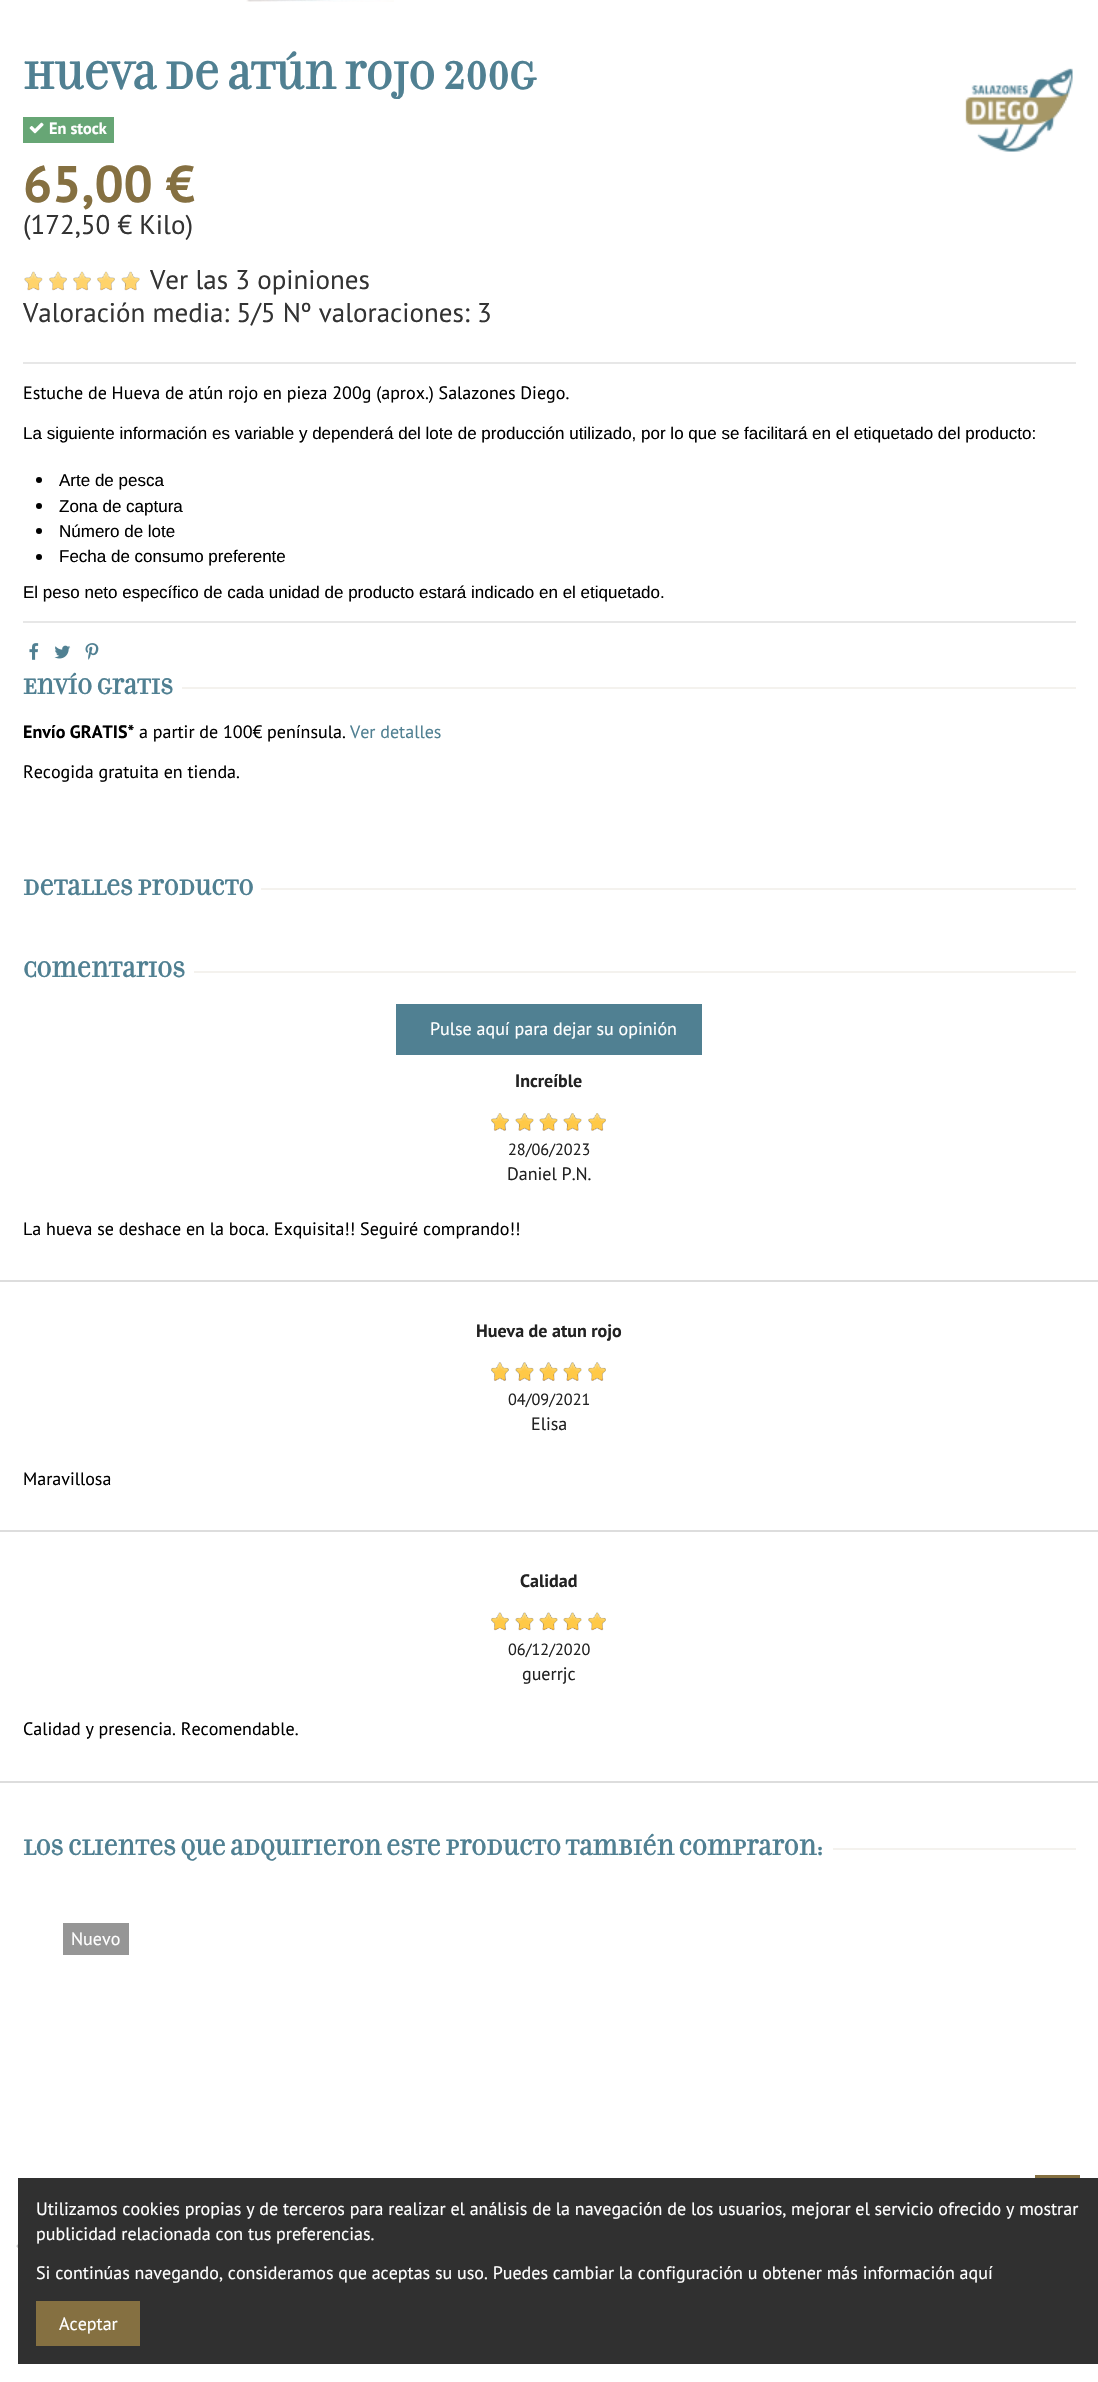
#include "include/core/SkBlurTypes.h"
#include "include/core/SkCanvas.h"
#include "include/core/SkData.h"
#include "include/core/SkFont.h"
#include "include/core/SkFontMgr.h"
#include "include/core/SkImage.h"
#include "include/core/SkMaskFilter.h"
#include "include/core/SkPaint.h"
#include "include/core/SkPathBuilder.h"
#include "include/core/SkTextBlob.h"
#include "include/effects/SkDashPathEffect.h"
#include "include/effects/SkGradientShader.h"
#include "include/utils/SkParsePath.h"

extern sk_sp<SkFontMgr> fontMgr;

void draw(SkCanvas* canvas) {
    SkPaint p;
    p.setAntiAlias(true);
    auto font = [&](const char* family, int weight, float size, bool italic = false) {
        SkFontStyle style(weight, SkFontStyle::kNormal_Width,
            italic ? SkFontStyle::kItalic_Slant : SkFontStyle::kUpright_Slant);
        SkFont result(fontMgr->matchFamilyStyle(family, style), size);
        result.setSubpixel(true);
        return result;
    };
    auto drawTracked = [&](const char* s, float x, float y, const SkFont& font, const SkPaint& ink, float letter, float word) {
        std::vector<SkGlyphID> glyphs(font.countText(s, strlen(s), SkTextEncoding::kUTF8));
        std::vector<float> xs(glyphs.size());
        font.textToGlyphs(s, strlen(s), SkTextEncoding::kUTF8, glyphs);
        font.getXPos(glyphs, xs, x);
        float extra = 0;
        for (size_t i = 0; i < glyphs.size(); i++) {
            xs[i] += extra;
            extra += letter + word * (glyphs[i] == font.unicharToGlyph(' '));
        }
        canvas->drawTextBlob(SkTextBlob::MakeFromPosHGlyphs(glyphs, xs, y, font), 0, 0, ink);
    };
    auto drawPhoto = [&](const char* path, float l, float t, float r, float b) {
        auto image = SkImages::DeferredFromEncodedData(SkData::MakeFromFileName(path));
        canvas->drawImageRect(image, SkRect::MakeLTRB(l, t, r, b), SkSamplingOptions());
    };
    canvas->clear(0xFFFFFFFF);
    drawPhoto("media/1.png", 246, 0, 394, 2);
    p.setColor(0xFFE7E7E7);
    canvas->drawRect(SkRect::MakeLTRB(23, 362, 1076, 364), p);
    auto font1 = font("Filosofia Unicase", 700, 41.1f);
    p.setColor(0xFF508092);
    canvas->drawString("Hueva de atún rojo 200g", 23, 89, font1, p);
    drawPhoto("media/2.png", 965, 68, 1073, 152);
    p.setColor(0xFF67A675);
    canvas->drawRect(SkRect::MakeLTRB(23, 117, 114, 143), p);
    drawPhoto("media/3.png", 29, 122, 44, 134);
    auto font2 = font("PT Sans", 700, 16.25f);
    p.setColor(0xFFFFFFFF);
    canvas->drawString("En stock", 49, 134, font2, p);
    auto font3 = font("PT Sans", 700, 51.5f);
    p.setColor(0xFF857041);
    canvas->drawString("65,00 €", 23, 202, font3, p);
    auto font4 = font("PT Sans", 400, 27);
    p.setColor(0xFF333333);
    canvas->drawString("(172,50 € Kilo)", 23, 234, font4, p);
    drawPhoto("media/4.png", 24, 271, 140, 291);
    canvas->drawString("Ver las 3 opiniones", 150, 289, font4, p);
    canvas->drawString("Valoración media: 5/5 Nº valoraciones: 3", 23, 322, font4, p);
    auto font5 = font("PT Sans", 400, 18);
    p.setColor(0xFF000000);
    canvas->drawString("Estuche de Hueva de atún rojo en pieza 200g (aprox.) Salazones Diego.", 23, 399, font5, p);
    auto font6 = font("Liberation Sans", 400, 17);
    canvas->drawString("La siguiente información es variable y dependerá del lote de producción utilizado, por lo que se facilitará en el etiquetado del producto:", 23, 439, font6, p);
    canvas->drawCircle(39, 480, 3, p);
    canvas->drawString("Arte de pesca", 59, 486, font6, p);
    canvas->drawCircle(39, 506, 3, p);
    canvas->drawString("Zona de captura", 59, 512, font6, p);
    canvas->drawCircle(39, 531, 3, p);
    canvas->drawString("Número de lote", 59, 537, font6, p);
    canvas->drawCircle(39, 557, 3, p);
    canvas->drawString("Fecha de consumo preferente", 59, 562, font6, p);
    canvas->drawString("El peso neto específico de cada unidad de producto estará indicado en el etiquetado.", 23, 598, font6, p);
    p.setColor(0xFFE7E7E7);
    canvas->drawRect(SkRect::MakeLTRB(23, 621, 1076, 623), p);
    drawPhoto("media/5.png", 29, 643, 39, 660);
    drawPhoto("media/6.png", 54, 645, 71, 659);
    drawPhoto("media/7.png", 85, 643, 99, 660);
    auto font7 = font("Filosofia Unicase", 700, 23.15f);
    p.setColor(0xFF508092);
    canvas->drawString("Envío gratis", 23, 694, font7, p);
    p.setColor(0xFFF4F2EE);
    canvas->drawRect(SkRect::MakeLTRB(182, 687, 1076, 689), p);
    auto font8 = font("PT Sans", 700, 18);
    p.setColor(0xFF000000);
    canvas->drawString("Envío GRATIS*", 23, 738, font8, p);
    canvas->drawString("a partir de 100€ península.", 139, 738, font5, p);
    p.setColor(0xFF508092);
    canvas->drawString("Ver detalles", 350, 738, font5, p);
    p.setColor(0xFF000000);
    canvas->drawString("Recogida gratuita en tienda.", 23, 778, font5, p);
    p.setColor(0xFF508092);
    canvas->drawString("Detalles producto", 23, 895, font7, p);
    p.setColor(0xFFF4F2EE);
    canvas->drawRect(SkRect::MakeLTRB(261, 888, 1076, 890), p);
    p.setColor(0xFF508092);
    canvas->drawString("Comentarios", 23, 977, font7, p);
    p.setColor(0xFFF4F2EE);
    canvas->drawRect(SkRect::MakeLTRB(194, 971, 1076, 973), p);
    p.setColor(0xFF508092);
    canvas->drawRect(SkRect::MakeLTRB(396, 1004, 702, 1055), p);
    p.setColor(0xFFFFFFFF);
    canvas->drawString("Pulse aquí para dejar su opinión", 430, 1035, font5, p);
    p.setColor(0xFF222222);
    canvas->drawString("Increíble", 515, 1087, font8, p);
    drawPhoto("media/8.png", 491, 1113, 606, 1131);
    auto font9 = font("PT Sans", 400, 16.25f);
    canvas->drawString("28/06/2023", 508, 1155, font9, p);
    canvas->drawString("Daniel P.N.", 507, 1180, font5, p);
    p.setColor(0xFFDDDDDD);
    canvas->drawRect(SkRect::MakeLTRB(0, 1280, 1098, 1282), p);
    p.setColor(0xFF000000);
    canvas->drawString("La hueva se deshace en la boca. Exquisita!! Seguiré comprando!!", 23, 1235, font5, p);
    p.setColor(0xFF222222);
    canvas->drawString("Hueva de atun rojo", 476, 1337, font8, p);
    drawPhoto("media/9.png", 491, 1362, 606, 1381);
    canvas->drawString("04/09/2021", 508, 1405, font9, p);
    canvas->drawString("Elisa", 531, 1430, font5, p);
    p.setColor(0xFFDDDDDD);
    canvas->drawRect(SkRect::MakeLTRB(0, 1530, 1098, 1532), p);
    p.setColor(0xFF000000);
    canvas->drawString("Maravillosa", 23, 1485, font5, p);
    p.setColor(0xFF222222);
    canvas->drawString("Calidad", 520, 1587, font8, p);
    drawPhoto("media/10.png", 491, 1612, 606, 1631);
    canvas->drawString("06/12/2020", 508, 1655, font9, p);
    canvas->drawString("guerrjc", 522, 1680, font5, p);
    p.setColor(0xFFDDDDDD);
    canvas->drawRect(SkRect::MakeLTRB(0, 1781, 1098, 1783), p);
    p.setColor(0xFF000000);
    canvas->drawString("Calidad y presencia. Recomendable.", 23, 1735, font5, p);
    p.setColor(0xFF508092);
    drawTracked("Los clientes que adquirieron este producto también compraron:", 23, 1855, font7, p, 0, -0.25f);
    p.setColor(0xFFF4F2EE);
    canvas->drawRect(SkRect::MakeLTRB(833, 1848, 1076, 1850), p);
    p.setColor(0xFF969696);
    canvas->drawRect(SkRect::MakeLTRB(63, 1923, 129, 1955), p);
    p.setColor(0xFFFFFFFF);
    canvas->drawString("Nuevo", 71, 1945, font5, p);
    drawPhoto("media/11.png", 16, 2244, 18, 2248);
    p.setColor(0xFF857041);
    canvas->drawRect(SkRect::MakeLTRB(1035, 2175, 1080, 2178), p);
    p.setColor(0xFF303030);
    canvas->drawRect(SkRect::MakeLTRB(18, 2178, 1098, 2364), p);
    p.setColor(0xFFFFFFFF);
    {
        const struct { const char* s; float x, y; } items[] = {
            {"Utilizamos cookies propias y de terceros para realizar el análisis de la navegación de los usuarios, mejorar el servicio ofrecido y mostrar", 36, 2215},
            {"publicidad relacionada con tus preferencias.", 36, 2240},
            {"Si continúas navegando, consideramos que aceptas su uso. Puedes cambiar la configuración u obtener más información aquí", 36, 2279},
        };
        for (auto [s, x, y] : items) {
            canvas->drawString(s, x, y, font5, p);
        }
    }
    p.setColor(0xFF857041);
    canvas->drawRect(SkRect::MakeLTRB(36, 2301, 140, 2346), p);
    p.setColor(0xFFFFFFFF);
    canvas->drawString("Aceptar", 59, 2330, font5, p);
}
